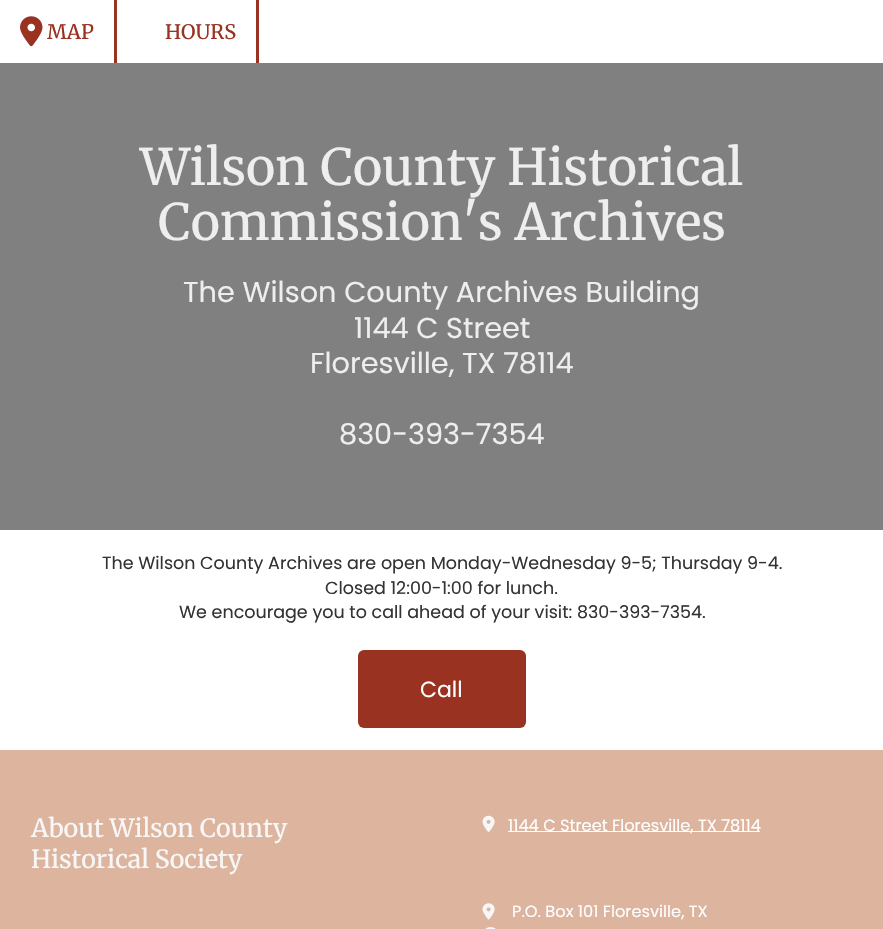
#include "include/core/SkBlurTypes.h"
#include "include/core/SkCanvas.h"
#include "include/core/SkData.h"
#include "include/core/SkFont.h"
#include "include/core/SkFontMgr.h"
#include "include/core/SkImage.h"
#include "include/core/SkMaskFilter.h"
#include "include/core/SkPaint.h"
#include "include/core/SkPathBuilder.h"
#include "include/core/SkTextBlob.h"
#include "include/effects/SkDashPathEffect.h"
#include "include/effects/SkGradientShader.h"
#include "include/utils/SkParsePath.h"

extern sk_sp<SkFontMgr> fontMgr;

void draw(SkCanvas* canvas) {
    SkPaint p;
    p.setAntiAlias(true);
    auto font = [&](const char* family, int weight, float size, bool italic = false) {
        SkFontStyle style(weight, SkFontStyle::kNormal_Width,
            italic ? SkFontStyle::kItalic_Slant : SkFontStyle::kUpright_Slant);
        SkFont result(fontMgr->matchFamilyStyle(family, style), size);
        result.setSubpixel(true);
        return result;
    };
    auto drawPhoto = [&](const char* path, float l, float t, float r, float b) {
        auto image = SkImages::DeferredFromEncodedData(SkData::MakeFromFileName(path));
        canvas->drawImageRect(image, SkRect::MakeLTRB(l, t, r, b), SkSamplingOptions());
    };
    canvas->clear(0xFFFFFFFF);
    p.setColor(0xFF993220);
    canvas->drawRect(SkRect::MakeLTRB(114, 0, 117, 63), p);
    drawPhoto("media/1.png", 20, 16, 43, 47);
    auto font1 = font("Merriweather", 400, 20);
    canvas->drawString("MAP", 47, 39, font1, p);
    canvas->drawRect(SkRect::MakeLTRB(256, 0, 259, 63), p);
    canvas->drawString("HOURS", 165, 39, font1, p);
    p.setColor(0xFF808080);
    canvas->drawRect(SkRect::MakeLTRB(0, 63, 883, 530), p);
    auto font2 = font("Merriweather", 400, 50);
    p.setColor(0xFFEEEEEE);
    canvas->drawString("Wilson County Historical", 140, 185, font2, p);
    canvas->drawString("Commission's Archives", 158, 240, font2, p);
    auto font3 = font("Poppins", 400, 28.75f);
    {
        const struct { const char* s; float x, y; } items[] = {
            {"The Wilson County Archives Building", 183, 302},
            {"1144 C Street", 354, 338},
            {"Floresville, TX 78114", 310, 373},
            {"830-393-7354", 339, 444},
        };
        for (auto [s, x, y] : items) {
            canvas->drawString(s, x, y, font3, p);
        }
    }
    auto font4 = font("Poppins", 400, 17.5f);
    p.setColor(0xFF333333);
    {
        const struct { const char* s; float x, y; } items[] = {
            {"The Wilson County Archives are open Monday-Wednesday 9-5; Thursday 9-4.", 102, 569},
            {"Closed 12:00-1:00 for lunch.", 325, 594},
            {"We encourage you to call ahead of your visit: 830-393-7354.", 179, 618},
        };
        for (auto [s, x, y] : items) {
            canvas->drawString(s, x, y, font4, p);
        }
    }
    p.setColor(0xFF993220);
    canvas->drawRoundRect(SkRect::MakeLTRB(358, 650, 526, 728), 6, 6, p);
    auto font5 = font("Poppins", 400, 22);
    p.setColor(0xFFFFFFFF);
    canvas->drawString("Call", 420, 697, font5, p);
    p.setColor(0xFFDDB59F);
    canvas->drawRect(SkRect::MakeLTRB(0, 750, 883, 929), p);
    auto font6 = font("Merriweather", 400, 25);
    p.setColor(0xFFF7F7F7);
    canvas->drawString("About Wilson County", 31, 837, font6, p);
    canvas->drawString("Historical Society", 31, 868, font6, p);
    drawPhoto("media/2.png", 482, 815, 495, 832);
    p.setColor(0xFFFFFFFF);
    canvas->drawRect(SkRect::MakeLTRB(508, 831, 760, 832), p);
    auto font7 = font("Poppins", 400, 16.25f);
    canvas->drawString("1144 C Street Floresville, TX 78114", 508, 831, font7, p);
    drawPhoto("media/3.png", 482, 903, 495, 920);
    canvas->drawString("P.O. Box 101 Floresville, TX", 512, 917, font7, p);
    drawPhoto("media/4.png", 485, 927, 496, 929);
}
